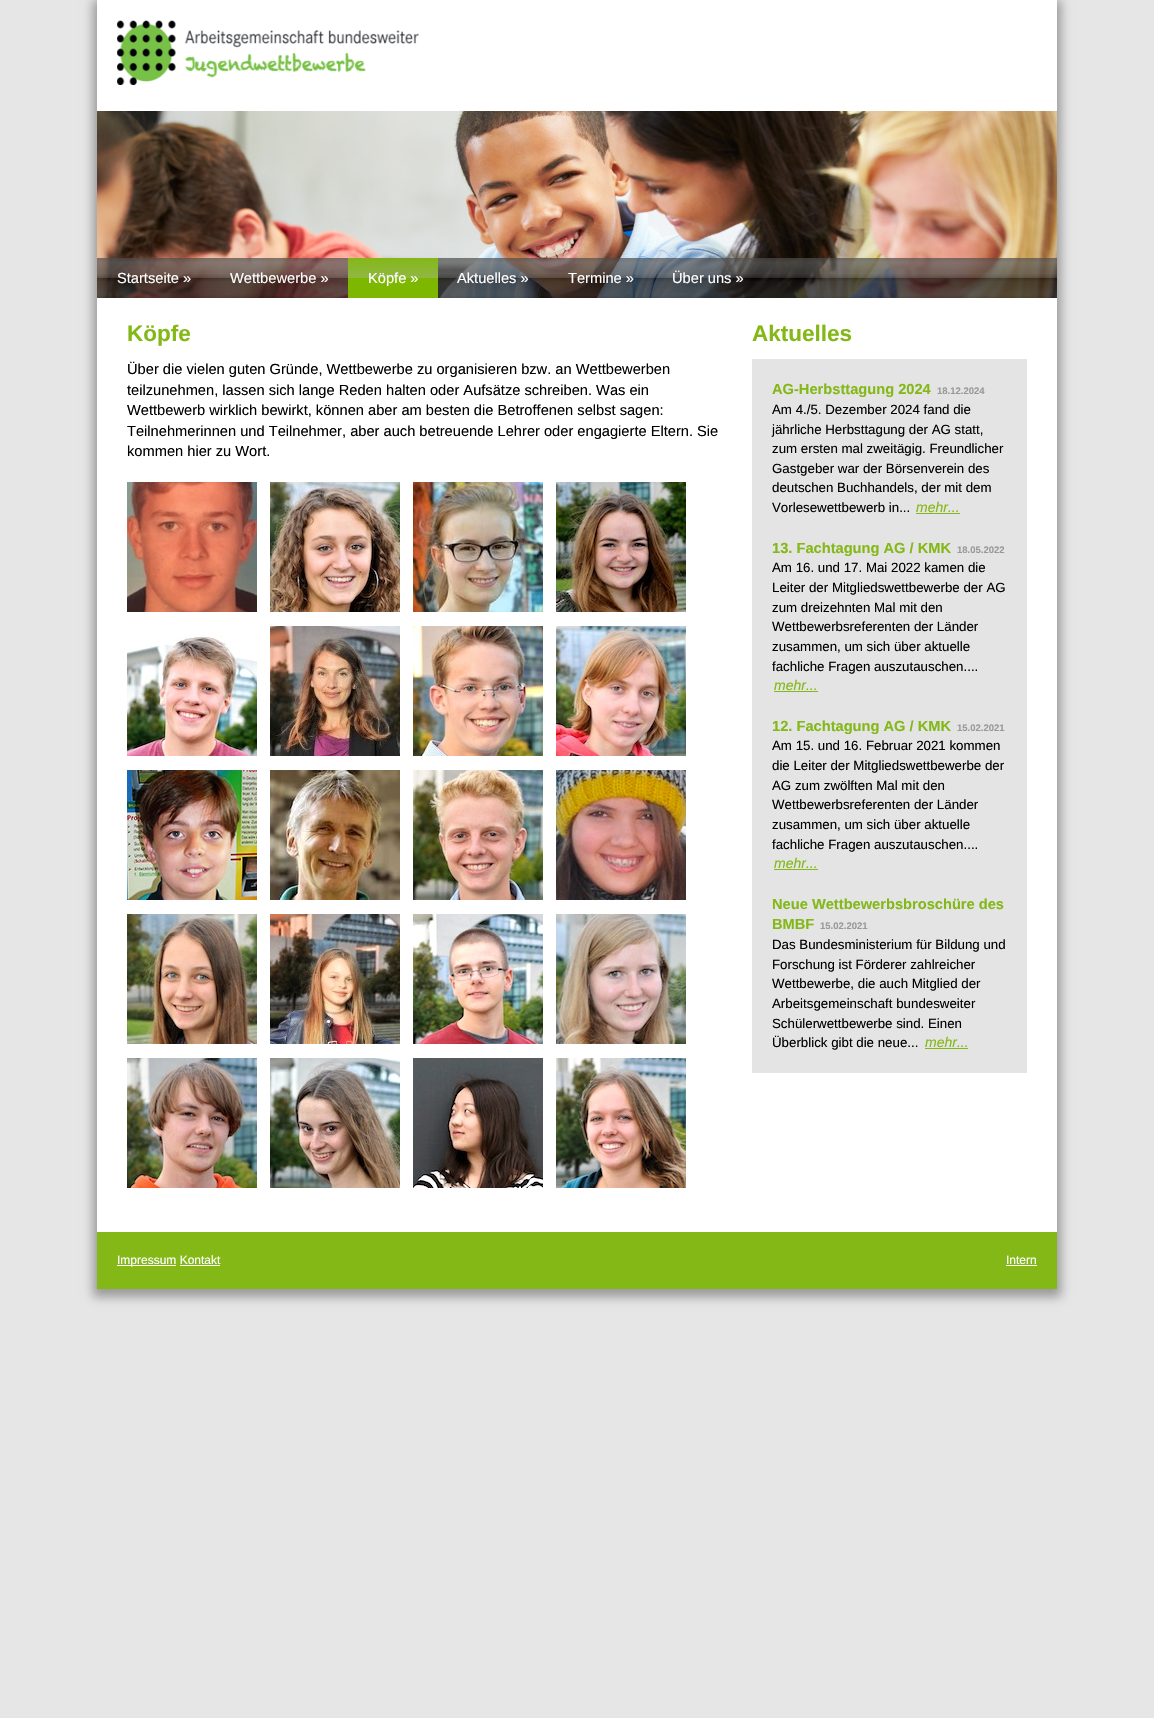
#include "include/core/SkBlurTypes.h"
#include "include/core/SkCanvas.h"
#include "include/core/SkData.h"
#include "include/core/SkFont.h"
#include "include/core/SkFontMgr.h"
#include "include/core/SkImage.h"
#include "include/core/SkMaskFilter.h"
#include "include/core/SkPaint.h"
#include "include/core/SkPathBuilder.h"
#include "include/core/SkTextBlob.h"
#include "include/effects/SkDashPathEffect.h"
#include "include/effects/SkGradientShader.h"
#include "include/utils/SkParsePath.h"

extern sk_sp<SkFontMgr> fontMgr;

void draw(SkCanvas* canvas) {
    SkPaint p;
    p.setAntiAlias(true);
    auto font = [&](const char* family, int weight, float size, bool italic = false) {
        SkFontStyle style(weight, SkFontStyle::kNormal_Width,
            italic ? SkFontStyle::kItalic_Slant : SkFontStyle::kUpright_Slant);
        SkFont result(fontMgr->matchFamilyStyle(family, style), size);
        result.setSubpixel(true);
        return result;
    };
    auto drawPhoto = [&](const char* path, float l, float t, float r, float b) {
        auto image = SkImages::DeferredFromEncodedData(SkData::MakeFromFileName(path));
        canvas->drawImageRect(image, SkRect::MakeLTRB(l, t, r, b), SkSamplingOptions());
    };
    canvas->clear(0xFFE6E6E6);
    p.setColor(0xFF999999);
    p.setMaskFilter(SkMaskFilter::MakeBlur(kNormal_SkBlurStyle, 5));
    canvas->drawRect(SkRect::MakeLTRB(93, 0, 1061, 1297), p);
    p.setMaskFilter(nullptr);
    p.setColor(0xFFFFFFFF);
    canvas->drawRect(SkRect::MakeLTRB(97, 0, 1057, 1232), p);
    drawPhoto("media/1.png", 117, 20, 420, 85);
    drawPhoto("media/2.png", 97, 111, 1057, 298);
    auto font1 = font("Liberation Sans", 400, 14.65f);
    canvas->drawString("Startseite »", 117, 283, font1, p);
    canvas->drawString("Wettbewerbe »", 230, 283, font1, p);
    {
        const SkColor colors[] = {0xFF83B817, 0xFF92B743, 0xFF7DB700, 0xFF7DB700};
        const float stops[] = {0, 0.5f, 0.51f, 1};
        const SkPoint ends[] = {{393, 258}, {393, 298}};
        p.setShader(SkGradientShader::MakeLinear(ends, colors, stops, 4, SkTileMode::kClamp));
        p.setAlpha(255);
    }
    canvas->drawRect(SkRect::MakeLTRB(348, 258, 438, 298), p);
    p.setShader(nullptr);
    p.setColor(0xFFFFFFFF);
    {
        const struct { const char* s; float x, y; } items[] = {
            {"Köpfe »", 368, 283},
            {"Aktuelles »", 457, 283},
            {"Termine »", 568, 283},
            {"Über uns »", 672, 283},
        };
        for (auto [s, x, y] : items) {
            canvas->drawString(s, x, y, font1, p);
        }
    }
    auto font2 = font("Liberation Sans", 700, 22.5f);
    p.setColor(0xFF83B817);
    canvas->drawString("Köpfe", 127, 341, font2, p);
    p.setColor(0xFF000000);
    {
        const struct { const char* s; float x, y; } items[] = {
            {"Über die vielen guten Gründe, Wettbewerbe zu organisieren bzw. an Wettbewerben", 127, 374},
            {"teilzunehmen, lassen sich lange Reden halten oder Aufsätze schreiben. Was ein", 127, 395},
            {"Wettbewerb wirklich bewirkt, können aber am besten die Betroffenen selbst sagen:", 127, 415},
            {"Teilnehmerinnen und Teilnehmer, aber auch betreuende Lehrer oder engagierte Eltern. Sie", 127, 436},
            {"kommen hier zu Wort.", 127, 456},
        };
        for (auto [s, x, y] : items) {
            canvas->drawString(s, x, y, font1, p);
        }
    }
    drawPhoto("media/3.png", 127, 482, 257, 612);
    drawPhoto("media/4.png", 270, 482, 400, 612);
    drawPhoto("media/5.png", 413, 482, 543, 612);
    drawPhoto("media/6.png", 556, 482, 686, 612);
    drawPhoto("media/7.png", 127, 635, 257, 756);
    drawPhoto("media/8.png", 270, 626, 400, 756);
    drawPhoto("media/9.png", 413, 626, 543, 756);
    drawPhoto("media/10.png", 556, 626, 686, 756);
    drawPhoto("media/11.png", 127, 770, 257, 900);
    drawPhoto("media/12.png", 270, 770, 400, 900);
    drawPhoto("media/13.png", 413, 770, 543, 900);
    drawPhoto("media/14.png", 556, 770, 686, 900);
    drawPhoto("media/15.png", 127, 914, 257, 1044);
    drawPhoto("media/16.png", 270, 914, 400, 1044);
    drawPhoto("media/17.png", 413, 914, 543, 1044);
    drawPhoto("media/18.png", 556, 914, 686, 1044);
    drawPhoto("media/19.png", 127, 1058, 257, 1188);
    drawPhoto("media/20.png", 270, 1058, 400, 1188);
    drawPhoto("media/21.png", 413, 1058, 543, 1188);
    drawPhoto("media/22.png", 556, 1058, 686, 1188);
    p.setColor(0xFF83B817);
    canvas->drawString("Aktuelles", 752, 341, font2, p);
    p.setColor(0xFFE4E4E4);
    canvas->drawRect(SkRect::MakeLTRB(752, 359, 1027, 1073), p);
    auto font3 = font("Liberation Sans", 700, 14.65f);
    p.setColor(0xFF83B817);
    canvas->drawString("AG-Herbsttagung 2024", 772, 394, font3, p);
    auto font4 = font("Liberation Sans", 700, 9.5f);
    p.setColor(0xFF999999);
    canvas->drawString("18.12.2024", 937, 394, font4, p);
    auto font5 = font("Liberation Sans", 400, 13.3f);
    p.setColor(0xFF000000);
    {
        const struct { const char* s; float x, y; } items[] = {
            {"Am 4./5. Dezember 2024 fand die", 772, 414},
            {"jährliche Herbsttagung der AG statt,", 772, 434},
            {"zum ersten mal zweitägig. Freundlicher", 772, 453},
            {"Gastgeber war der Börsenverein des", 772, 473},
            {"deutschen Buchhandels, der mit dem", 772, 492},
            {"Vorlesewettbewerb in...", 772, 512},
        };
        for (auto [s, x, y] : items) {
            canvas->drawString(s, x, y, font5, p);
        }
    }
    auto font6 = font("Liberation Sans", 400, 14, true);
    p.setColor(0xFF83B817);
    canvas->drawString("mehr...", 916, 512, font6, p);
    canvas->drawRect(SkRect::MakeLTRB(916, 513, 960, 514), p);
    canvas->drawString("13. Fachtagung AG / KMK", 772, 553, font3, p);
    p.setColor(0xFF999999);
    canvas->drawString("18.05.2022", 957, 553, font4, p);
    p.setColor(0xFF000000);
    {
        const struct { const char* s; float x, y; } items[] = {
            {"Am 16. und 17. Mai 2022 kamen die", 772, 572},
            {"Leiter der Mitgliedswettbewerbe der AG", 772, 592},
            {"zum dreizehnten Mal mit den", 772, 612},
            {"Wettbewerbsreferenten der Länder", 772, 631},
            {"zusammen, um sich über aktuelle", 772, 651},
            {"fachliche Fragen auszutauschen....", 772, 671},
        };
        for (auto [s, x, y] : items) {
            canvas->drawString(s, x, y, font5, p);
        }
    }
    p.setColor(0xFF83B817);
    canvas->drawString("mehr...", 774, 690, font6, p);
    canvas->drawRect(SkRect::MakeLTRB(774, 691, 818, 692), p);
    canvas->drawString("12. Fachtagung AG / KMK", 772, 731, font3, p);
    p.setColor(0xFF999999);
    canvas->drawString("15.02.2021", 957, 731, font4, p);
    p.setColor(0xFF000000);
    {
        const struct { const char* s; float x, y; } items[] = {
            {"Am 15. und 16. Februar 2021 kommen", 772, 750},
            {"die Leiter der Mitgliedswettbewerbe der", 772, 770},
            {"AG zum zwölften Mal mit den", 772, 790},
            {"Wettbewerbsreferenten der Länder", 772, 809},
            {"zusammen, um sich über aktuelle", 772, 829},
            {"fachliche Fragen auszutauschen....", 772, 849},
        };
        for (auto [s, x, y] : items) {
            canvas->drawString(s, x, y, font5, p);
        }
    }
    p.setColor(0xFF83B817);
    canvas->drawString("mehr...", 774, 868, font6, p);
    canvas->drawRect(SkRect::MakeLTRB(774, 869, 818, 870), p);
    canvas->drawString("Neue Wettbewerbsbroschüre des", 772, 909, font3, p);
    canvas->drawString("BMBF", 772, 929, font3, p);
    p.setColor(0xFF999999);
    canvas->drawString("15.02.2021", 820, 929, font4, p);
    p.setColor(0xFF000000);
    {
        const struct { const char* s; float x, y; } items[] = {
            {"Das Bundesministerium für Bildung und", 772, 949},
            {"Forschung ist Förderer zahlreicher", 772, 969},
            {"Wettbewerbe, die auch Mitglied der", 772, 988},
            {"Arbeitsgemeinschaft bundesweiter", 772, 1008},
            {"Schülerwettbewerbe sind. Einen", 772, 1028},
            {"Überblick gibt die neue...", 772, 1047},
        };
        for (auto [s, x, y] : items) {
            canvas->drawString(s, x, y, font5, p);
        }
    }
    p.setColor(0xFF83B817);
    canvas->drawString("mehr...", 925, 1047, font6, p);
    {
        const struct { float l, t, r, b; SkColor color; } items[] = {
            {925, 1048, 968, 1049, 0xFF83B817},
            {97, 1232, 1057, 1289, 0xFF83B817},
            {117, 1265, 176, 1266, 0xFFFFFFFF},
        };
        for (auto [l, t, r, b, color] : items) {
            p.setColor(color);
            canvas->drawRect(SkRect::MakeLTRB(l, t, r, b), p);
        }
    }
    auto font7 = font("Liberation Sans", 400, 12);
    canvas->drawString("Impressum Kontakt", 117, 1264, font7, p);
    canvas->drawRect(SkRect::MakeLTRB(180, 1265, 220, 1266), p);
    canvas->drawString("Intern", 1006, 1264, font7, p);
    canvas->drawRect(SkRect::MakeLTRB(1006, 1265, 1037, 1266), p);
}
